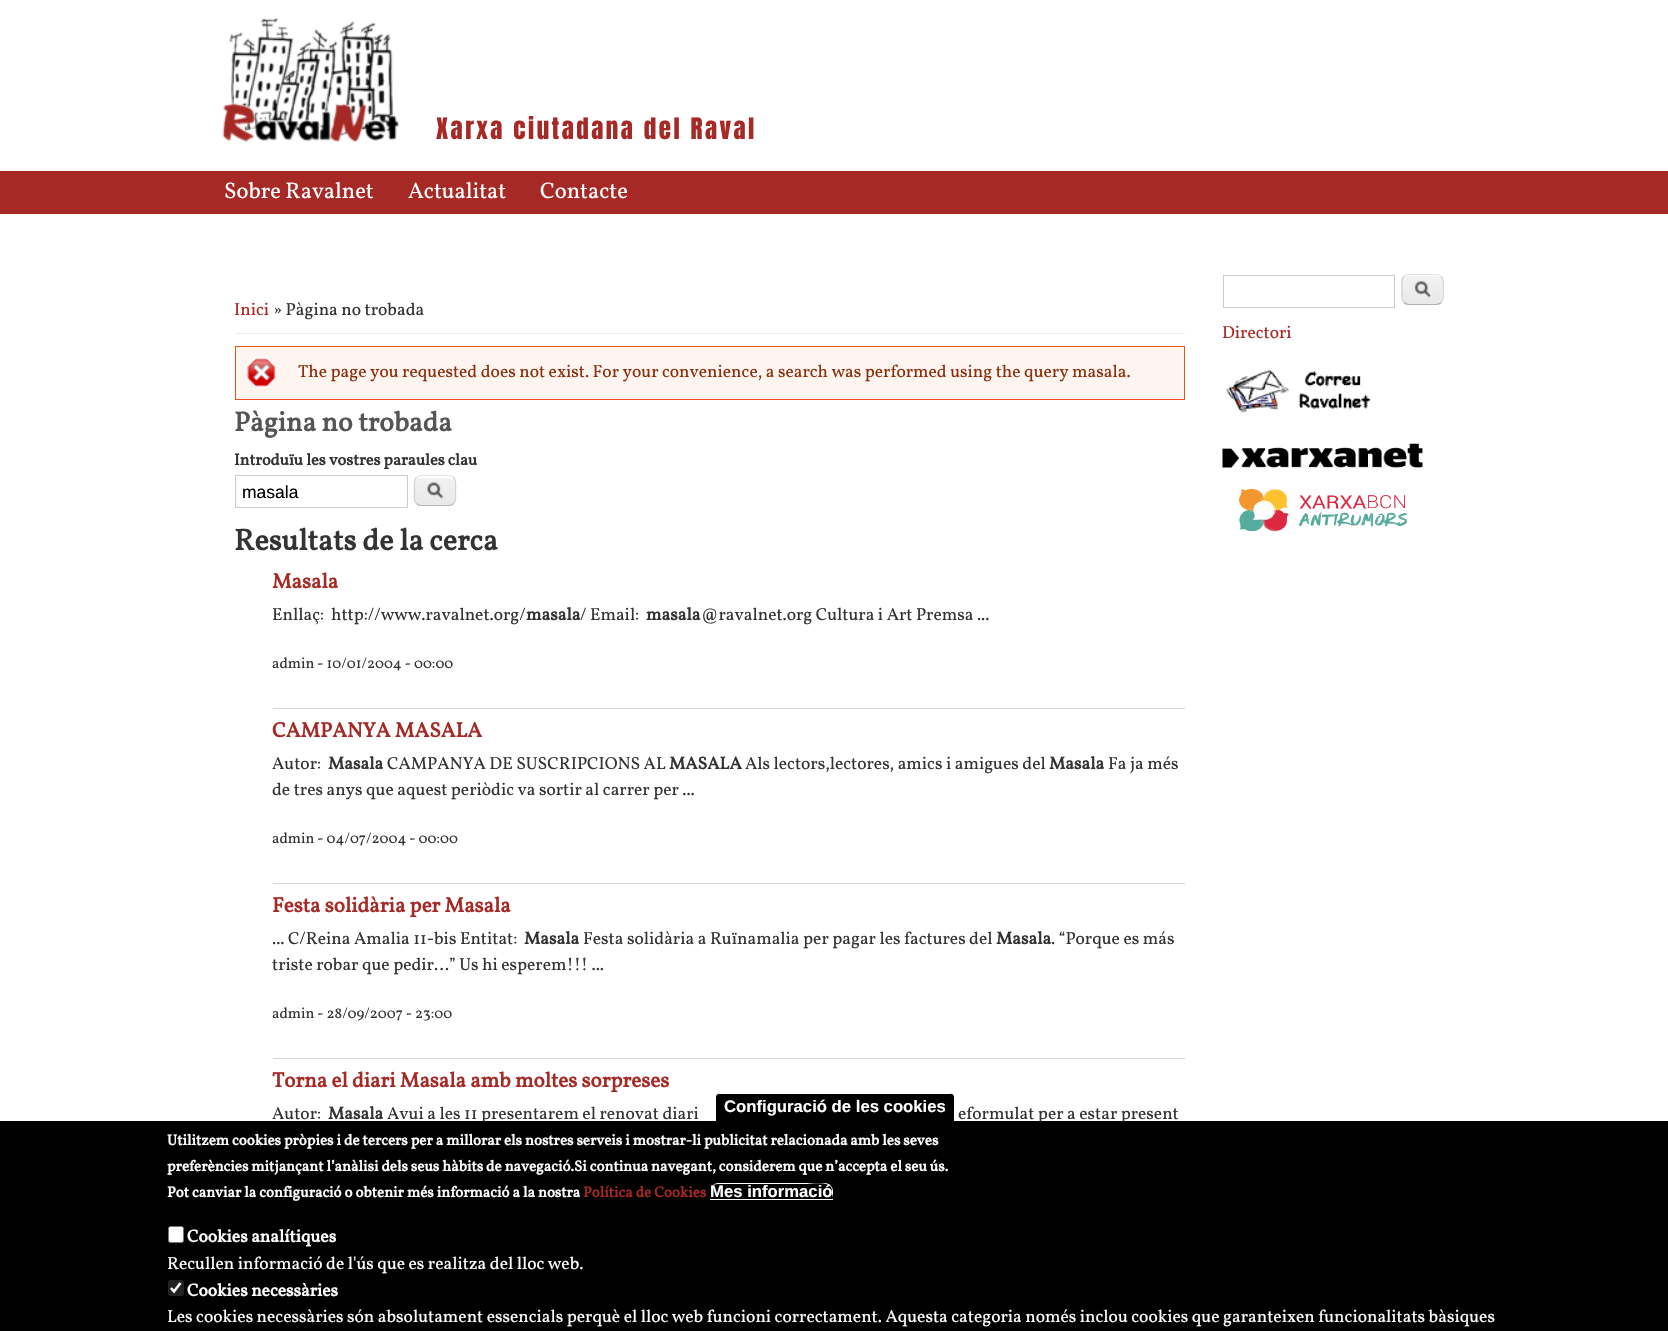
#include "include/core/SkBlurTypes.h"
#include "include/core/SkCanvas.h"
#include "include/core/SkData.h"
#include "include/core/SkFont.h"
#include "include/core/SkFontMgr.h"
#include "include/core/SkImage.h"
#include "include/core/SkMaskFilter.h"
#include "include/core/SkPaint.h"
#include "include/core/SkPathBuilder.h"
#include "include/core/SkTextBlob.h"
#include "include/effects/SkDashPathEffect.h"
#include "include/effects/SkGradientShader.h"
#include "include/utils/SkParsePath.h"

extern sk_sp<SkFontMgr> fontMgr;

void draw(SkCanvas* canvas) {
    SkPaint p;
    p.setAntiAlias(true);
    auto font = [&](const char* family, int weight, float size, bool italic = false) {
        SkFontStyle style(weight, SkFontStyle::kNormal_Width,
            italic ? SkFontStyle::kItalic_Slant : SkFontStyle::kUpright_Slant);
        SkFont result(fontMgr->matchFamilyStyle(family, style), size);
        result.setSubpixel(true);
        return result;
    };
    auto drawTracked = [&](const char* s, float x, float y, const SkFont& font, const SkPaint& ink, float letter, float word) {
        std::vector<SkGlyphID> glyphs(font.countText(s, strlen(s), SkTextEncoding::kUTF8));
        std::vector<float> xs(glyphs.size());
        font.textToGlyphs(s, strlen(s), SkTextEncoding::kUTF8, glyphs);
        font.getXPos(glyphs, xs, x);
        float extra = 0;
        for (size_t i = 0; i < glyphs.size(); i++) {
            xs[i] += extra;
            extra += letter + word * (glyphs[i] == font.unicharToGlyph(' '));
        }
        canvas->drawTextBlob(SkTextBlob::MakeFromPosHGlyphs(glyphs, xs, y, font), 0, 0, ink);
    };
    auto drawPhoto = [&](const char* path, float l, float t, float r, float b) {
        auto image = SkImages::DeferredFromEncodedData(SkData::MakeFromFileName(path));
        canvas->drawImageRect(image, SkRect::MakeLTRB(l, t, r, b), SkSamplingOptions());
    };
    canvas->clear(0xFFFFFFFF);
    drawPhoto("media/1.png", 222, 18, 399, 143);
    auto font1 = font("Anton", 400, 25);
    p.setColor(0xFFA62925);
    drawTracked("Xarxa ciutadana del Raval", 436, 139, font1, p, 2.5f, 0);
    canvas->drawRect(SkRect::MakeLTRB(0, 171, 1668, 214), p);
    auto font2 = font("Vollkorn", 400, 22.5f);
    p.setColor(0xFFFFFFFF);
    {
        const struct { const char* s; float x, y; } items[] = {
            {"Sobre Ravalnet", 224, 198},
            {"Actualitat", 408, 198},
            {"Contacte", 540, 198},
        };
        for (auto [s, x, y] : items) {
            canvas->drawString(s, x, y, font2, p);
        }
    }
    p.setColor(0xFFEEEEEE);
    canvas->drawRect(SkRect::MakeLTRB(235, 333, 1185, 334), p);
    auto font3 = font("Vollkorn", 400, 17.5f);
    p.setColor(0xFFA62925);
    canvas->drawString("Inici", 234, 315, font3, p);
    p.setColor(0xFF333333);
    canvas->drawString("» Pàgina no trobada", 273, 315, font3, p);
    p.setColor(0xFFFEF5F1);
    canvas->drawRect(SkRect::MakeLTRB(236, 347, 1184, 399), p);
    drawPhoto("media/2.png", 246, 357, 276, 388);
    p.setStyle(SkPaint::kStroke_Style);
    p.setStrokeWidth(1);
    p.setColor(0xFFED541D);
    canvas->drawRect(SkRect::MakeLTRB(235.5f, 346.5f, 1184.5f, 399.5f), p);
    p.setStyle(SkPaint::kFill_Style);
    p.setColor(0xFF8C2E0B);
    canvas->drawString("The page you requested does not exist. For your convenience, a search was performed using the query masala.", 298, 377, font3, p);
    auto font4 = font("Vollkorn", 700, 27.5f);
    p.setColor(0xFF555555);
    canvas->drawString("Pàgina no trobada", 234, 431, font4, p);
    auto font5 = font("Vollkorn", 700, 16.25f);
    p.setColor(0xFF333333);
    canvas->drawString("Introduïu les vostres paraules clau", 234, 465, font5, p);
    p.setStyle(SkPaint::kStroke_Style);
    p.setColor(0xFFCCCCCC);
    canvas->drawRect(SkRect::MakeLTRB(235.5f, 475.5f, 407.5f, 507.5f), p);
    auto font6 = font("Liberation Sans", 400, 17.5f);
    p.setStyle(SkPaint::kFill_Style);
    p.setColor(0xFF000000);
    canvas->drawString("masala", 242, 498, font6, p);
    drawPhoto("media/3.png", 414, 476, 456, 506);
    p.setColor(0xFFFFFFFF);
    canvas->drawPath(SkPathBuilder(SkPathFillType::kEvenOdd).moveTo(421, 478).lineTo(444, 478).cubicTo(453, 478, 455, 480, 455, 486).cubicTo(455, 477, 453, 476, 444, 476).lineTo(426, 476).cubicTo(417, 476, 415, 477, 415, 486).cubicTo(415, 482, 416, 478, 421, 478).close().moveTo(455, 498).lineTo(455, 500).close().moveTo(416, 501).lineTo(415, 498).close().detach(), p);
    p.setStyle(SkPaint::kStroke_Style);
    p.setStrokeWidth(1.2f);
    p.setColor(0xFFE4E4E4);
    canvas->drawPath(SkPathBuilder().moveTo(416.5f, 477.5f).cubicTo(417.5f, 476.5f, 419.5f, 475.5f, 421, 475.5f).lineTo(449, 475.5f).cubicTo(450.5f, 475.5f, 452.5f, 476.5f, 453.5f, 477.5f).detach(), p);
    p.setColor(0xFFD2D2D2);
    canvas->drawPath(SkPathBuilder().moveTo(453.5f, 477.5f).cubicTo(457, 481, 455.5f, 486.5f, 455.5f, 490.5f).cubicTo(455.5f, 494.5f, 457, 500.5f, 453.5f, 503.5f).detach(), p);
    p.setColor(0xFFB4B4B4);
    canvas->drawPath(SkPathBuilder().moveTo(453.5f, 503.5f).cubicTo(452.5f, 505, 450.5f, 505.5f, 449, 505.5f).lineTo(421, 505.5f).cubicTo(419.5f, 505.5f, 417.5f, 505, 416.5f, 503.5f).detach(), p);
    p.setColor(0xFFD2D2D2);
    canvas->drawPath(SkPathBuilder().moveTo(416.5f, 503.5f).cubicTo(413, 500.5f, 414.5f, 494.5f, 414.5f, 490.5f).cubicTo(414.5f, 486.5f, 413, 481, 416.5f, 477.5f).detach(), p);
    auto font7 = font("Vollkorn", 700, 30);
    p.setStyle(SkPaint::kFill_Style);
    p.setColor(0xFF333333);
    canvas->drawString("Resultats de la cerca", 234, 550, font7, p);
    p.setColor(0xFFD3D7D9);
    canvas->drawRect(SkRect::MakeLTRB(273, 708, 1185, 709), p);
    auto font8 = font("Vollkorn", 700, 21);
    p.setColor(0xFFA62925);
    canvas->drawString("Masala", 272, 588, font8, p);
    p.setColor(0xFF333333);
    canvas->drawString("Enllaç:", 272, 620, font3, p);
    canvas->drawString("http://www.ravalnet.org/", 331, 620, font3, p);
    auto font9 = font("Vollkorn", 700, 17.5f);
    canvas->drawString("masala", 526, 620, font9, p);
    canvas->drawString("/ Email:", 580, 620, font3, p);
    canvas->drawString("masala", 646, 620, font9, p);
    canvas->drawString("@ravalnet.org Cultura i Art Premsa ...", 701, 620, font3, p);
    auto font10 = font("Vollkorn", 400, 14.9f);
    canvas->drawString("admin - 10/01/2004 - 00:00", 272, 668, font10, p);
    p.setColor(0xFFD3D7D9);
    canvas->drawRect(SkRect::MakeLTRB(273, 883, 1185, 884), p);
    p.setColor(0xFFA62925);
    canvas->drawString("CAMPANYA MASALA", 272, 737, font8, p);
    p.setColor(0xFF333333);
    canvas->drawString("Autor:", 272, 769, font3, p);
    canvas->drawString("Masala", 328, 769, font9, p);
    canvas->drawString("CAMPANYA DE SUSCRIPCIONS AL", 387, 769, font3, p);
    canvas->drawString("MASALA", 669, 769, font9, p);
    canvas->drawString("Als lectors,lectores, amics i amigues del", 745, 769, font3, p);
    canvas->drawString("Masala", 1049, 769, font9, p);
    canvas->drawString("Fa ja més", 1108, 769, font3, p);
    canvas->drawString("de tres anys que aquest periòdic va sortir al carrer per ...", 272, 795, font3, p);
    canvas->drawString("admin - 04/07/2004 - 00:00", 272, 843, font10, p);
    p.setColor(0xFFD3D7D9);
    canvas->drawRect(SkRect::MakeLTRB(273, 1058, 1185, 1059), p);
    p.setColor(0xFFA62925);
    canvas->drawString("Festa solidària per Masala", 272, 912, font8, p);
    p.setColor(0xFF333333);
    canvas->drawString("... C/Reina Amalia 11-bis Entitat:", 272, 944, font3, p);
    canvas->drawString("Masala", 524, 944, font9, p);
    canvas->drawString("Festa solidària a Ruïnamalia per pagar les factures del", 583, 944, font3, p);
    canvas->drawString("Masala", 996, 944, font9, p);
    canvas->drawString(". “Porque es más", 1051, 944, font3, p);
    canvas->drawString("triste robar que pedir…” Us hi esperem!!! ...", 272, 970, font3, p);
    canvas->drawString("admin - 28/09/2007 - 23:00", 272, 1018, font10, p);
    p.setColor(0xFFA62925);
    canvas->drawString("Torna el diari Masala amb moltes sorpreses", 272, 1087, font8, p);
    p.setColor(0xFF333333);
    canvas->drawString("Autor:", 272, 1119, font3, p);
    canvas->drawString("Masala", 328, 1119, font9, p);
    canvas->drawString("Avui a les 11 presentarem el renovat diari", 387, 1119, font3, p);
    canvas->drawString("eformulat per a estar present", 958, 1119, font3, p);
    p.setStyle(SkPaint::kStroke_Style);
    p.setStrokeWidth(1);
    p.setColor(0xFFCCCCCC);
    canvas->drawRect(SkRect::MakeLTRB(1223.5f, 275.5f, 1394.5f, 307.5f), p);
    drawPhoto("media/4.png", 1401, 275, 1444, 305);
    p.setStyle(SkPaint::kFill_Style);
    p.setColor(0xFFFFFFFF);
    canvas->drawPath(SkPathBuilder().moveTo(1409, 276).lineTo(1424.5f, 276).cubicTo(1428.5f, 276, 1436, 275, 1440, 277.5f).cubicTo(1441, 278, 1441.5f, 279, 1441.5f, 280).cubicTo(1442, 281.5f, 1442.5f, 299.5f, 1441.5f, 302).cubicTo(1442.5f, 301, 1443, 299.5f, 1443, 298).lineTo(1443, 281).cubicTo(1443, 277.5f, 1440.5f, 275, 1437, 275).lineTo(1409, 275).cubicTo(1406, 275, 1403.5f, 277, 1403, 279.5f).cubicTo(1404, 277.5f, 1406, 276, 1409, 276).close().detach(), p);
    p.setStyle(SkPaint::kStroke_Style);
    p.setStrokeWidth(1.2f);
    p.setColor(0xFFE4E4E4);
    canvas->drawPath(SkPathBuilder().moveTo(1404, 276.5f).cubicTo(1405, 275, 1407, 274.5f, 1409, 274.5f).lineTo(1436, 274.5f).cubicTo(1438, 274.5f, 1440, 275, 1441, 276.5f).detach(), p);
    p.setColor(0xFFD2D2D2);
    canvas->drawPath(SkPathBuilder().moveTo(1441, 276.5f).cubicTo(1444.5f, 279.5f, 1443, 285.5f, 1443, 289.5f).cubicTo(1443, 293.5f, 1444.5f, 299, 1441, 302.5f).detach(), p);
    p.setColor(0xFFB4B4B4);
    canvas->drawPath(SkPathBuilder().moveTo(1441, 302.5f).cubicTo(1440, 303.5f, 1438, 304.5f, 1436, 304.5f).lineTo(1409, 304.5f).cubicTo(1407, 304.5f, 1405, 303.5f, 1404, 302.5f).detach(), p);
    p.setColor(0xFFD2D2D2);
    canvas->drawPath(SkPathBuilder().moveTo(1404, 302.5f).cubicTo(1400.5f, 299, 1402, 293.5f, 1402, 289.5f).cubicTo(1402, 285.5f, 1400.5f, 279.5f, 1404, 276.5f).detach(), p);
    p.setStyle(SkPaint::kFill_Style);
    p.setColor(0xFFA62925);
    canvas->drawString("Directori", 1222, 338, font3, p);
    drawPhoto("media/5.png", 1226, 370, 1371, 413);
    drawPhoto("media/6.png", 1222, 443, 1423, 468);
    drawPhoto("media/7.png", 1238, 488, 1408, 532);
    p.setColor(0xFF000000);
    canvas->drawRect(SkRect::MakeLTRB(0, 1121, 1668, 1331), p);
    canvas->drawPath(SkPathBuilder().moveTo(719, 1093).lineTo(950, 1093).cubicTo(952, 1093, 954, 1095, 954, 1097).lineTo(954, 1121).lineTo(715, 1121).lineTo(715, 1097).cubicTo(715, 1095, 717, 1093, 719, 1093).close().detach(), p);
    p.setColor(0xFFFFFFFF);
    canvas->drawPath(SkPathBuilder().moveTo(719, 1094).lineTo(951, 1094).cubicTo(953, 1094, 954, 1095, 954, 1098).lineTo(954, 1097).cubicTo(954, 1095, 952, 1093, 950, 1093).lineTo(719, 1093).cubicTo(717, 1093, 715, 1095, 715, 1097).lineTo(715, 1121).lineTo(716, 1121).lineTo(716, 1098).cubicTo(716, 1095, 717, 1094, 719, 1094).close().detach(), p);
    canvas->drawPath(SkPathBuilder(SkPathFillType::kEvenOdd).moveTo(719, 1090).lineTo(951, 1090).cubicTo(954, 1090, 957, 1093, 957, 1096).lineTo(957, 1121).lineTo(713, 1121).lineTo(713, 1096).cubicTo(713, 1093, 716, 1090, 719, 1090).close().moveTo(719, 1092).lineTo(951, 1092).cubicTo(953, 1092, 954, 1094, 954, 1096).lineTo(954, 1121).lineTo(716, 1121).lineTo(716, 1096).cubicTo(716, 1094, 717, 1092, 719, 1092).close().detach(), p);
    auto font11 = font("Liberation Sans", 700, 16.7f);
    canvas->drawString("Configuració de les cookies", 724, 1112, font11, p);
    auto font12 = font("Vollkorn", 700, 15);
    {
        const struct { const char* s; float x, y; } items[] = {
            {"Utilitzem cookies pròpies i de tercers per a millorar els nostres serveis i mostrar-li publicitat relacionada amb les seves", 167, 1145},
            {"preferències mitjançant l’anàlisi dels seus hàbits de navegació.Si continua navegant, considerem que n’accepta el seu ús.", 167, 1171},
            {"Pot canviar la configuració o obtenir més informació a la nostra", 167, 1197},
        };
        for (auto [s, x, y] : items) {
            canvas->drawString(s, x, y, font12, p);
        }
    }
    p.setColor(0xFFA62925);
    canvas->drawString("Política de Cookies", 583, 1197, font12, p);
    p.setColor(0xFFFFFFFF);
    canvas->drawPath(SkPathBuilder().moveTo(718, 1184).lineTo(807, 1184).cubicTo(812, 1184, 832, 1180, 832, 1191).lineTo(832, 1198).cubicTo(832, 1196, 833, 1195, 833, 1193).lineTo(833, 1191).cubicTo(833, 1187, 829, 1183, 825, 1183).lineTo(718, 1183).cubicTo(714, 1183, 710, 1187, 710, 1191).cubicTo(710, 1187, 713, 1184, 718, 1184).close().detach(), p);
    canvas->drawString("Mes informació", 710, 1197, font11, p);
    canvas->drawRect(SkRect::MakeLTRB(710, 1199, 833, 1200), p);
    canvas->drawRoundRect(SkRect::MakeLTRB(168.5f, 1226.5f, 183.5f, 1242.5f), 2, 2, p);
    p.setStyle(SkPaint::kStroke_Style);
    p.setStrokeWidth(1);
    p.setColor(0xFF767676);
    canvas->drawRoundRect(SkRect::MakeLTRB(168.5f, 1226.5f, 183.5f, 1242.5f), 2, 2, p);
    p.setStyle(SkPaint::kFill_Style);
    p.setColor(0xFFFFFFFF);
    canvas->drawString("Cookies analítiques", 187, 1242, font9, p);
    canvas->drawString("Recullen informació de l'ús que es realitza del lloc web.", 167, 1269, font3, p);
    p.setColor(0xFF232323);
    canvas->drawRoundRect(SkRect::MakeLTRB(168, 1280, 184, 1296), 2.5f, 2.5f, p);
    p.setStyle(SkPaint::kStroke_Style);
    p.setStrokeWidth(2.6f);
    p.setColor(0xFFFFFFFF);
    canvas->drawPath(SkPathBuilder().moveTo(171, 1288).lineTo(174, 1291.5f).lineTo(180.5f, 1283).detach(), p);
    p.setStyle(SkPaint::kFill_Style);
    canvas->drawString("Cookies necessàries", 187, 1296, font9, p);
    canvas->drawString("Les cookies necessàries són absolutament essencials perquè el lloc web funcioni correctament. Aquesta categoria només inclou cookies que garanteixen funcionalitats bàsiques", 167, 1322, font3, p);
}
